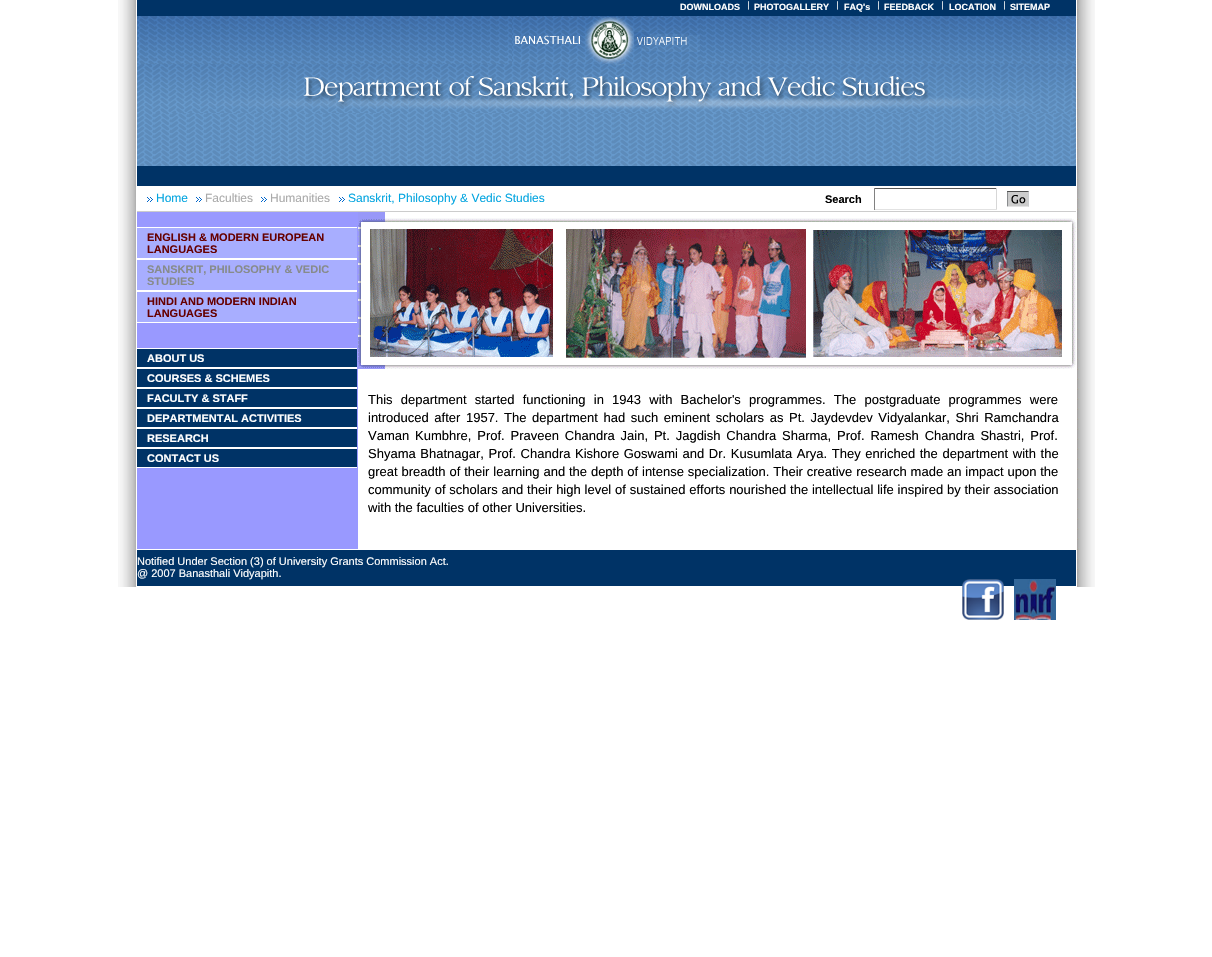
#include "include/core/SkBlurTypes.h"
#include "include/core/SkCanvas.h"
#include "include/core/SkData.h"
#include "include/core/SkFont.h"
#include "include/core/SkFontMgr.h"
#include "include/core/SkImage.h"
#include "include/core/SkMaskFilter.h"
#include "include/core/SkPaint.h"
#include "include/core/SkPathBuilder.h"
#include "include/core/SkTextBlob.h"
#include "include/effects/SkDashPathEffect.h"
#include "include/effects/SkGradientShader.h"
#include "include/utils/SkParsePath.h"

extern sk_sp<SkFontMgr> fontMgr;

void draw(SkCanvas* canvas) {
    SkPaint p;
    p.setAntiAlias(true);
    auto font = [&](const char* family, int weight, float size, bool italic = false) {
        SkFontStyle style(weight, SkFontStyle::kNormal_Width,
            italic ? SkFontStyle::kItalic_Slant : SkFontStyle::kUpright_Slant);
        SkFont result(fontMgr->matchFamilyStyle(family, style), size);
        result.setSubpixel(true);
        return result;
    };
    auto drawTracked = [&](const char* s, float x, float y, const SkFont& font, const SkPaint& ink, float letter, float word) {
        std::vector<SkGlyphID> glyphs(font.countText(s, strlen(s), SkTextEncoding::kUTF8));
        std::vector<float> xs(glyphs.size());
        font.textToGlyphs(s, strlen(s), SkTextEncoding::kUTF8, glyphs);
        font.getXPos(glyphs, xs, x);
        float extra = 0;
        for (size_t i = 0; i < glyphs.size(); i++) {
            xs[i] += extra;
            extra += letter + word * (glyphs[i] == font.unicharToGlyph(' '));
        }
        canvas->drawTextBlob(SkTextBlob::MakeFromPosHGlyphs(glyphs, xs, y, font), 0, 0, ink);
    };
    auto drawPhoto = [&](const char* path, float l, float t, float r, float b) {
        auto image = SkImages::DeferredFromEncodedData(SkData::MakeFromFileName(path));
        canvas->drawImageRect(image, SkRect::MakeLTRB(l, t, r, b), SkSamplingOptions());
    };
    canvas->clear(0xFFFFFFFF);
    drawPhoto("media/1.png", 118, 0, 136, 587);
    p.setColor(0xFF003366);
    canvas->drawRect(SkRect::MakeLTRB(137, 0, 1076, 16), p);
    auto font1 = font("Liberation Sans", 700, 9);
    p.setColor(0xFFFFFFFF);
    canvas->drawString("DOWNLOADS", 680, 10, font1, p);
    drawPhoto("media/2.png", 748, 1, 749, 10);
    canvas->drawString("PHOTOGALLERY", 754, 10, font1, p);
    drawPhoto("media/2.png", 837, 1, 838, 10);
    canvas->drawString("FAQ's", 844, 10, font1, p);
    drawPhoto("media/2.png", 878, 1, 879, 10);
    canvas->drawString("FEEDBACK", 884, 10, font1, p);
    drawPhoto("media/2.png", 942, 1, 943, 10);
    canvas->drawString("LOCATION", 949, 10, font1, p);
    drawPhoto("media/2.png", 1004, 1, 1005, 10);
    canvas->drawString("SITEMAP", 1010, 10, font1, p);
    drawPhoto("media/3.png", 137, 16, 1076, 64);
    drawPhoto("media/4.png", 512, 17, 700, 64);
    drawPhoto("media/5.png", 137, 64, 1076, 113);
    drawPhoto("media/6.png", 137, 113, 1076, 166);
    p.setColor(0xFF003366);
    canvas->drawRect(SkRect::MakeLTRB(137, 166, 1076, 186), p);
    p.setColor(0xFFCCCCCC);
    canvas->drawRect(SkRect::MakeLTRB(137, 211, 1076, 212), p);
    drawPhoto("media/7.png", 147, 197, 153, 202);
    auto font2 = font("Liberation Sans", 400, 12);
    p.setColor(0xFF03A5E0);
    canvas->drawString("Home", 156, 202, font2, p);
    drawPhoto("media/7.png", 196, 197, 202, 202);
    p.setColor(0xFFAAAAAA);
    canvas->drawString("Faculties", 205, 202, font2, p);
    drawPhoto("media/7.png", 261, 197, 267, 202);
    canvas->drawString("Humanities", 270, 202, font2, p);
    drawPhoto("media/7.png", 339, 197, 345, 202);
    p.setColor(0xFF03A5E0);
    canvas->drawString("Sanskrit, Philosophy & Vedic Studies", 348, 202, font2, p);
    auto font3 = font("Liberation Sans", 700, 11);
    p.setColor(0xFF000000);
    canvas->drawString("Search", 825, 203, font3, p);
    {
        const struct { float l, t, r, b; SkColor color; } items[] = {
            {874, 188, 997, 189, 0xFF565656},
            {996, 188, 997, 210, 0xFFD7D7D7},
            {874, 209, 997, 210, 0xFFE2E2E2},
            {874, 188, 875, 210, 0xFF818181},
        };
        for (auto [l, t, r, b, color] : items) {
            p.setColor(color);
            canvas->drawRect(SkRect::MakeLTRB(l, t, r, b), p);
        }
    }
    drawPhoto("media/8.png", 1007, 191, 1029, 207);
    {
        const struct { float l, t, r, b; SkColor color; } items[] = {
            {137, 212, 358, 549, 0xFF9999FF},
            {137, 228, 357, 258, 0xFFA8AEFF},
            {137, 227, 357, 228, 0xFFFFFFFF},
            {137, 258, 357, 260, 0xFFFFFFFF},
        };
        for (auto [l, t, r, b, color] : items) {
            p.setColor(color);
            canvas->drawRect(SkRect::MakeLTRB(l, t, r, b), p);
        }
    }
    p.setColor(0xFF660000);
    canvas->drawString("ENGLISH & MODERN EUROPEAN", 147, 241, font3, p);
    canvas->drawString("LANGUAGES", 147, 253, font3, p);
    p.setColor(0xFFA8AEFF);
    canvas->drawRect(SkRect::MakeLTRB(137, 260, 357, 290), p);
    p.setColor(0xFFFFFFFF);
    canvas->drawRect(SkRect::MakeLTRB(137, 290, 357, 292), p);
    p.setColor(0xFF878B8B);
    canvas->drawString("SANSKRIT, PHILOSOPHY & VEDIC", 147, 273, font3, p);
    canvas->drawString("STUDIES", 147, 285, font3, p);
    p.setColor(0xFFA8AEFF);
    canvas->drawRect(SkRect::MakeLTRB(137, 292, 357, 322), p);
    p.setColor(0xFFFFFFFF);
    canvas->drawRect(SkRect::MakeLTRB(137, 322, 357, 323), p);
    p.setColor(0xFF660000);
    canvas->drawString("HINDI AND MODERN INDIAN", 147, 305, font3, p);
    canvas->drawString("LANGUAGES", 147, 317, font3, p);
    {
        const struct { float l, t, r, b; SkColor color; } items[] = {
            {137, 349, 357, 367, 0xFF003366},
            {137, 348, 357, 349, 0xFFFFFFFF},
            {137, 367, 357, 369, 0xFFFFFFFF},
        };
        for (auto [l, t, r, b, color] : items) {
            p.setColor(color);
            canvas->drawRect(SkRect::MakeLTRB(l, t, r, b), p);
        }
    }
    canvas->drawString("ABOUT US", 147, 362, font3, p);
    p.setColor(0xFF003366);
    canvas->drawRect(SkRect::MakeLTRB(137, 369, 357, 387), p);
    p.setColor(0xFFFFFFFF);
    canvas->drawRect(SkRect::MakeLTRB(137, 387, 357, 389), p);
    canvas->drawString("COURSES & SCHEMES", 147, 382, font3, p);
    p.setColor(0xFF003366);
    canvas->drawRect(SkRect::MakeLTRB(137, 389, 357, 407), p);
    p.setColor(0xFFFFFFFF);
    canvas->drawRect(SkRect::MakeLTRB(137, 407, 357, 409), p);
    canvas->drawString("FACULTY & STAFF", 147, 402, font3, p);
    p.setColor(0xFF003366);
    canvas->drawRect(SkRect::MakeLTRB(137, 409, 357, 427), p);
    p.setColor(0xFFFFFFFF);
    canvas->drawRect(SkRect::MakeLTRB(137, 427, 357, 429), p);
    canvas->drawString("DEPARTMENTAL ACTIVITIES", 147, 422, font3, p);
    p.setColor(0xFF003366);
    canvas->drawRect(SkRect::MakeLTRB(137, 429, 357, 447), p);
    p.setColor(0xFFFFFFFF);
    canvas->drawRect(SkRect::MakeLTRB(137, 447, 357, 449), p);
    canvas->drawString("RESEARCH", 147, 442, font3, p);
    p.setColor(0xFF003366);
    canvas->drawRect(SkRect::MakeLTRB(137, 449, 357, 467), p);
    p.setColor(0xFFFFFFFF);
    canvas->drawRect(SkRect::MakeLTRB(137, 467, 357, 468), p);
    canvas->drawString("CONTACT US", 147, 462, font3, p);
    drawPhoto("media/9.png", 358, 212, 1076, 369);
    auto font4 = font("Liberation Sans", 400, 13);
    p.setColor(0xFF000000);
    drawTracked("This department started functioning in 1943 with Bachelor's programmes. The postgraduate programmes were", 368, 404, font4, p, 0, 4.6f);
    drawTracked("introduced after 1957. The department had such eminent scholars as Pt. Jaydevdev Vidyalankar, Shri Ramchandra", 368, 422, font4, p, 0, 2);
    drawTracked("Vaman Kumbhre, Prof. Praveen Chandra Jain, Pt. Jagdish Chandra Sharma, Prof. Ramesh Chandra Shastri, Prof.", 368, 440, font4, p, 0, 2.25f);
    drawTracked("Shyama Bhatnagar, Prof. Chandra Kishore Goswami and Dr. Kusumlata Arya. They enriched the department with the", 368, 458, font4, p, 0, 1);
    drawTracked("great breadth of their learning and the depth of intense specialization. Their creative research made an impact upon the", 368, 476, font4, p, 0, 0.25f);
    drawTracked("community of scholars and their high level of sustained efforts nourished the intellectual life inspired by their association", 368, 494, font4, p, 0, 0.2f);
    canvas->drawString("with the faculties of other Universities.", 368, 512, font4, p);
    p.setColor(0xFF003366);
    canvas->drawRect(SkRect::MakeLTRB(137, 550, 1076, 586), p);
    auto font5 = font("Liberation Sans", 400, 11);
    p.setColor(0xFFFFFFFF);
    canvas->drawString("Notified Under Section (3) of University Grants Commission Act.", 137, 565, font5, p);
    canvas->drawString("@ 2007 Banasthali Vidyapith.", 137, 577, font5, p);
    drawPhoto("media/10.png", 962, 579, 1004, 620);
    drawPhoto("media/11.png", 1014, 579, 1056, 620);
    drawPhoto("media/12.png", 1077, 0, 1095, 587);
}
